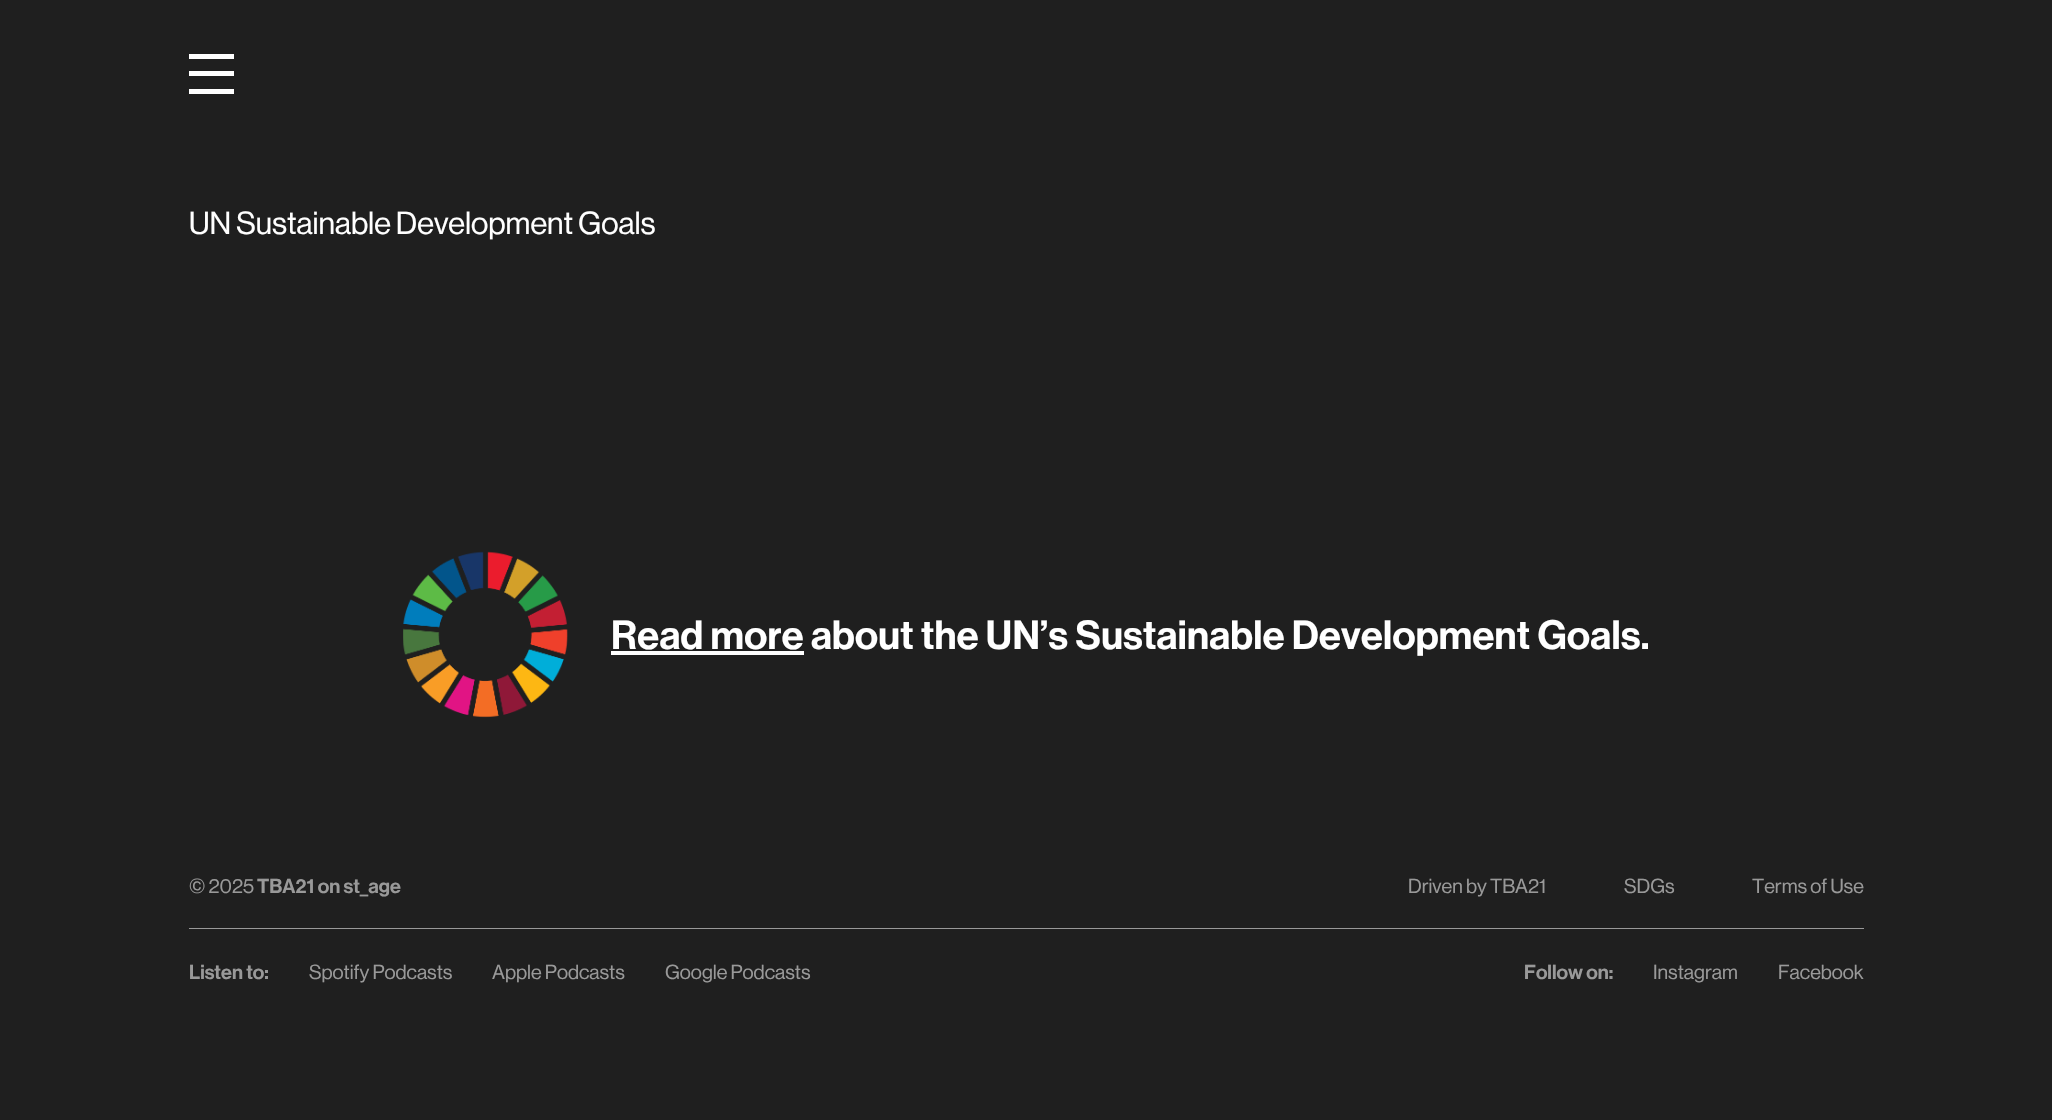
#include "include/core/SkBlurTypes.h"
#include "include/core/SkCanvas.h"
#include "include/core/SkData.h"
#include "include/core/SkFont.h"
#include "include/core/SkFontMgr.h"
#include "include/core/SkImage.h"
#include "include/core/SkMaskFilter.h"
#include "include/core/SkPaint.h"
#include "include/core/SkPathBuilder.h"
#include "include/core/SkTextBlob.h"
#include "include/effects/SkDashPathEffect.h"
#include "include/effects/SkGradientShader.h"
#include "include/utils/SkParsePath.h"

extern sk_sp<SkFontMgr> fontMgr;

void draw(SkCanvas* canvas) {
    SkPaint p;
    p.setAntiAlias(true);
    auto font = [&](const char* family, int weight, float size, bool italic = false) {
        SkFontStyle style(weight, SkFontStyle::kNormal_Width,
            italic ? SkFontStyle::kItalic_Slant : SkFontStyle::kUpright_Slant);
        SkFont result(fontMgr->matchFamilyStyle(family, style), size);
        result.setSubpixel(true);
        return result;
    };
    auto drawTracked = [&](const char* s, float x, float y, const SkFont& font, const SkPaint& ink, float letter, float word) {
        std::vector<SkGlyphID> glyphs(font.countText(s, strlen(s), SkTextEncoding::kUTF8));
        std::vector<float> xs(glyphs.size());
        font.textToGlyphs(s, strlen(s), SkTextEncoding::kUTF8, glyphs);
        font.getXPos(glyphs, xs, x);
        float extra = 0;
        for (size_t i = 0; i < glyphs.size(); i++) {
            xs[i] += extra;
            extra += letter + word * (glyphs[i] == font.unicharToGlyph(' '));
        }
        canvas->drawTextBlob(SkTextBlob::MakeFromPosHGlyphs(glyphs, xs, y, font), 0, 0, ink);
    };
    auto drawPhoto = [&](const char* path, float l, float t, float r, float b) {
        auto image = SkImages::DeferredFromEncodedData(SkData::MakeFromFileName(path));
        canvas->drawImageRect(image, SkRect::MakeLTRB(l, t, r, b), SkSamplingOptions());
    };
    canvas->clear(0xFF1F1F1F);
    {
        const struct { float l, t, r, b; SkColor color; } items[] = {
            {189, 54, 234, 59, 0xFFFFFFFF},
            {189, 89, 234, 94, 0xFFFFFFFF},
            {189, 71, 234, 76, 0xFFFFFFFF},
        };
        for (auto [l, t, r, b, color] : items) {
            p.setColor(color);
            canvas->drawRect(SkRect::MakeLTRB(l, t, r, b), p);
        }
    }
    auto font1 = font("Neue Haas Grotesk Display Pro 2", 500, 31.25f);
    canvas->drawString("UN Sustainable Development Goals", 189, 234, font1, p);
    drawPhoto("media/1.png", 403, 551, 568, 718);
    canvas->drawRect(SkRect::MakeLTRB(611, 651, 804, 655), p);
    auto font2 = font("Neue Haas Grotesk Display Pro", 500, 40);
    drawTracked("Read more about the UN’s Sustainable Development Goals.", 611, 649, font2, p, 0.3f, 0);
    auto font3 = font("Neue Haas Grotesk Display Pro 2", 500, 20);
    p.setColor(0xFF999999);
    canvas->drawString("© 2025", 189, 893, font3, p);
    auto font4 = font("Neue Haas Grotesk Display Pro", 500, 20);
    canvas->drawString("TBA21 on st_age", 257, 893, font4, p);
    {
        const struct { const char* s; float x, y; } items[] = {
            {"Driven by TBA21", 1408, 893},
            {"SDGs", 1624, 893},
            {"Terms of Use", 1752, 893},
        };
        for (auto [s, x, y] : items) {
            canvas->drawString(s, x, y, font3, p);
        }
    }
    canvas->drawRect(SkRect::MakeLTRB(189, 928, 1864, 929), p);
    canvas->drawString("Listen to:", 189, 979, font4, p);
    {
        const struct { const char* s; float x, y; } items[] = {
            {"Spotify Podcasts", 309, 979},
            {"Apple Podcasts", 492, 979},
            {"Google Podcasts", 665, 979},
        };
        for (auto [s, x, y] : items) {
            canvas->drawString(s, x, y, font3, p);
        }
    }
    canvas->drawString("Follow on:", 1524, 979, font4, p);
    canvas->drawString("Instagram", 1653, 979, font3, p);
    canvas->drawString("Facebook", 1778, 979, font3, p);
}
